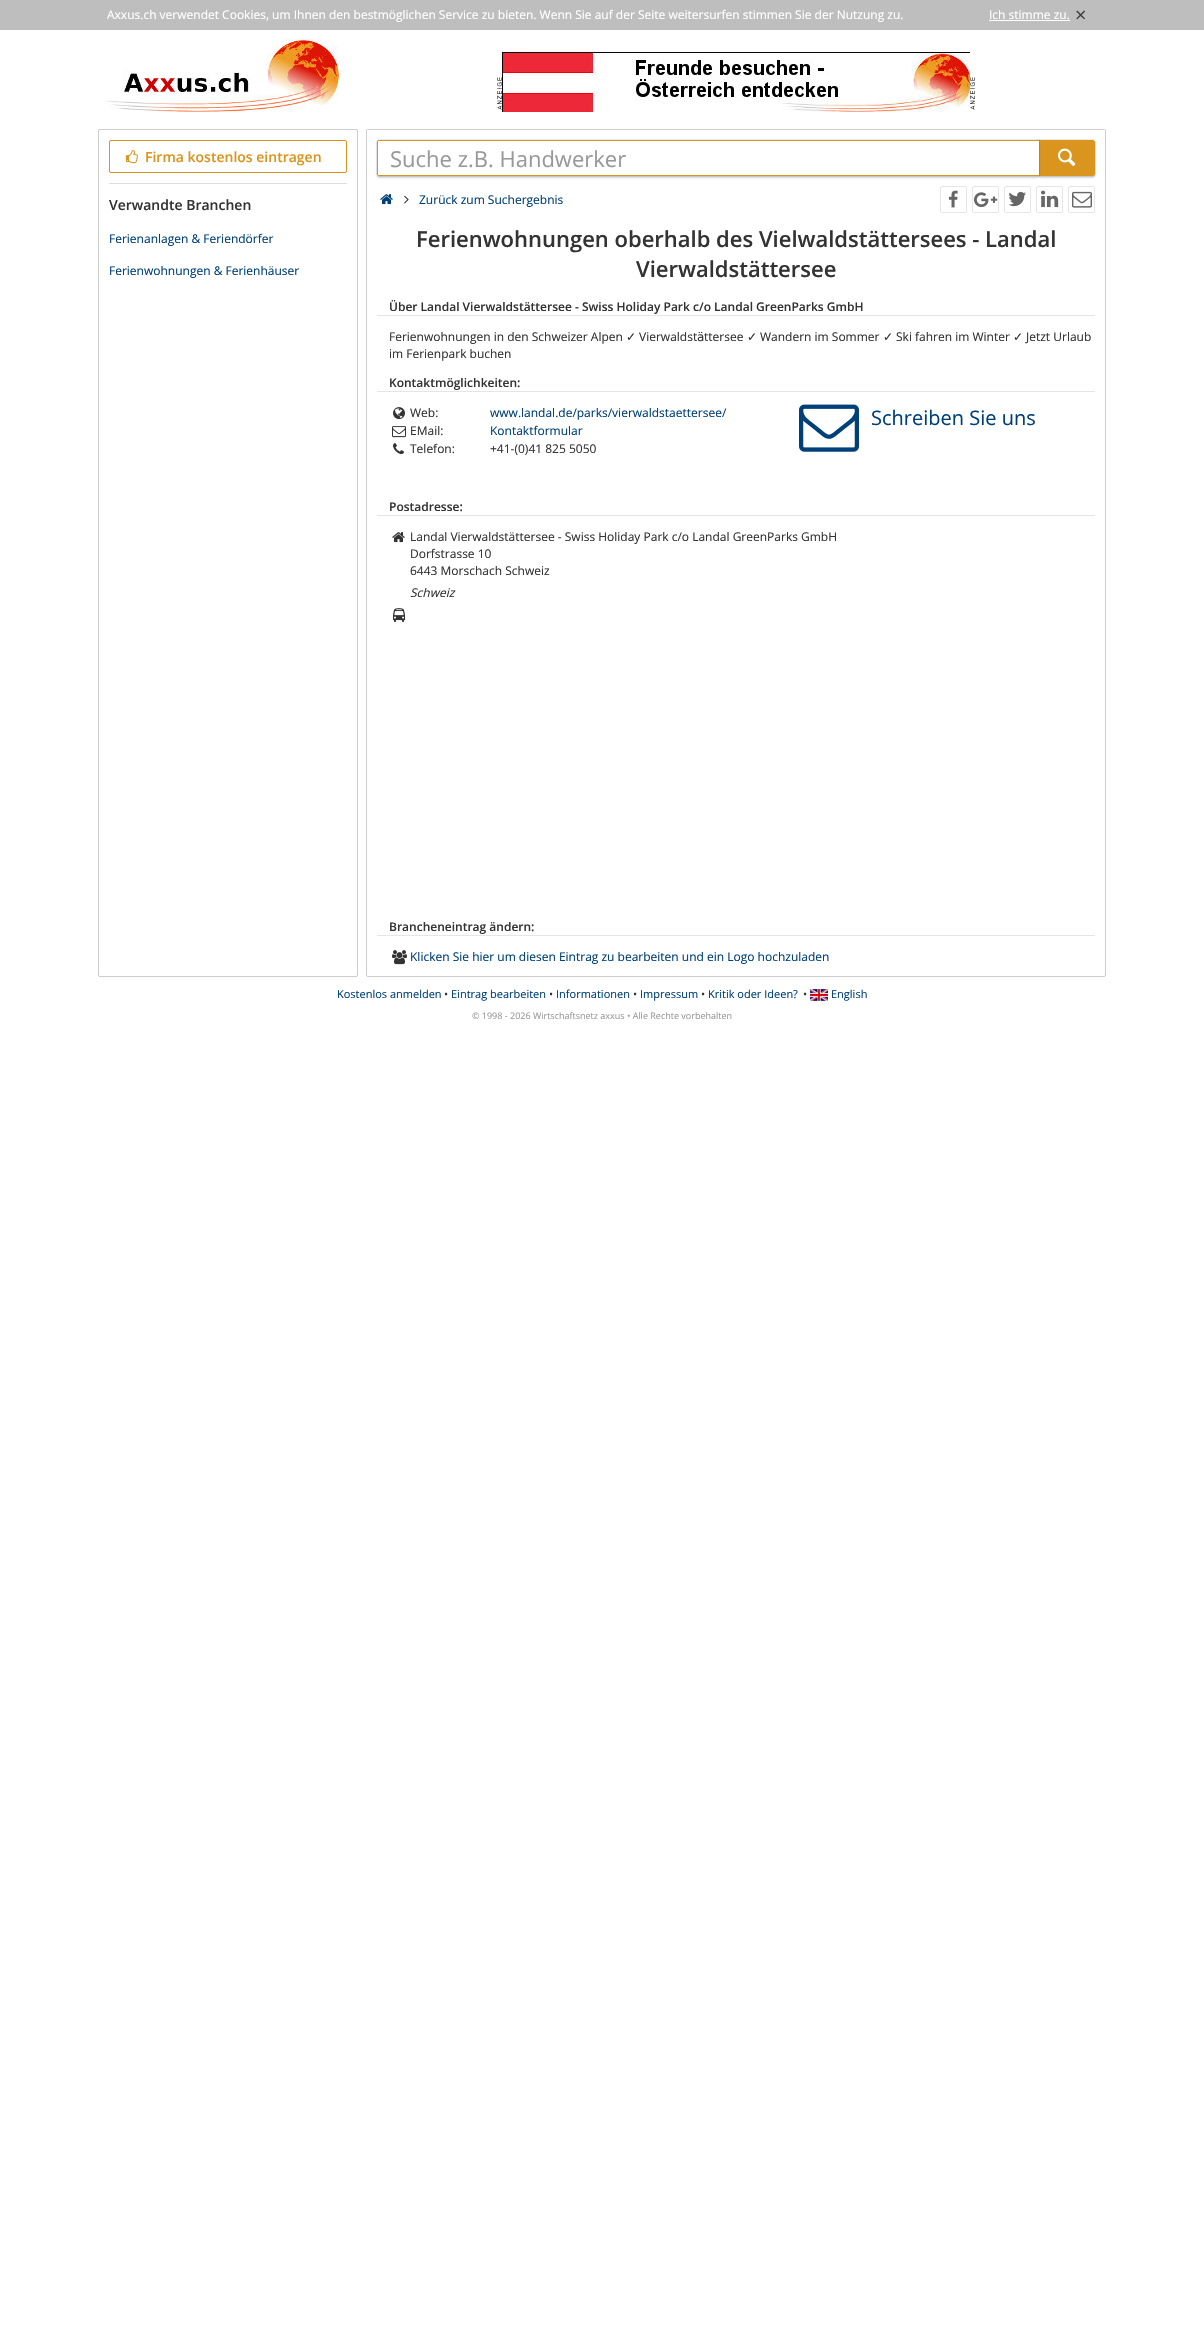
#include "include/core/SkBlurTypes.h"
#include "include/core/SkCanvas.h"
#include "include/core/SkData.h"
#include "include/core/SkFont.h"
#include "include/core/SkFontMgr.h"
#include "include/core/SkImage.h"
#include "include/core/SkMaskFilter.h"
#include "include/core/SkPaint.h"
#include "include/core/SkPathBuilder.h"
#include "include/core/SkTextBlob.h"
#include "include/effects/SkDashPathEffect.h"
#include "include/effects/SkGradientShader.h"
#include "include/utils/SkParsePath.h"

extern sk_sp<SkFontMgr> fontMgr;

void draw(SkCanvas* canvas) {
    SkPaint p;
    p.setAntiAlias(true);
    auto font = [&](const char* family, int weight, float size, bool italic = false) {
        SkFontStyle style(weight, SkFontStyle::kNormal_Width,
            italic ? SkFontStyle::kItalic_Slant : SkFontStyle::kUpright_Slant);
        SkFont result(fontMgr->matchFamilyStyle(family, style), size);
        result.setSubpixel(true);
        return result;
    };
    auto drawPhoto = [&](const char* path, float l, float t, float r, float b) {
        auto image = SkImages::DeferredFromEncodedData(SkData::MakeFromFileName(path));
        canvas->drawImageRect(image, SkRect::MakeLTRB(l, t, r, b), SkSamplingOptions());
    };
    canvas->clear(0xFFFFFFFF);
    p.setColor(0xFFBEBEBE);
    canvas->drawRect(SkRect::MakeLTRB(0, 0, 1204, 30), p);
    auto font1 = font("Open Sans", 400, 12);
    p.setColor(0xFFFFFFFF);
    canvas->drawString("Axxus.ch verwendet Cookies, um Ihnen den bestmöglichen Service zu bieten. Wenn Sie auf der Seite weitersurfen stimmen Sie der Nutzung zu.", 107, 19, font1, p);
    canvas->drawString("Ich stimme zu.", 989, 19, font1, p);
    canvas->drawRect(SkRect::MakeLTRB(989, 20, 1070, 21), p);
    auto font2 = font("Open Sans", 400, 20);
    p.setColor(0xFF404040);
    canvas->drawString("×", 1075, 22, font2, p);
    drawPhoto("media/1.png", 106, 38, 340, 112);
    drawPhoto("media/2.png", 497, 77, 502, 110);
    drawPhoto("media/3.png", 502, 52, 970, 112);
    drawPhoto("media/2.png", 970, 77, 975, 110);
    p.setStyle(SkPaint::kStroke_Style);
    p.setStrokeWidth(1);
    p.setColor(0xFFCCCCCC);
    canvas->drawRoundRect(SkRect::MakeLTRB(98.5f, 129.5f, 357.5f, 976.5f), 1.5f, 1.5f, p);
    p.setColor(0xFFD9951D);
    canvas->drawRoundRect(SkRect::MakeLTRB(109.5f, 140.5f, 346.5f, 172.5f), 1.5f, 1.5f, p);
    drawPhoto("media/4.png", 126, 150, 138, 164);
    auto font3 = font("Open Sans", 600, 14);
    p.setStyle(SkPaint::kFill_Style);
    canvas->drawString("Firma kostenlos eintragen", 145, 162, font3, p);
    p.setColor(0xFFDDDDDD);
    canvas->drawRect(SkRect::MakeLTRB(109, 183, 347, 184), p);
    p.setColor(0xFF333333);
    canvas->drawString("Verwandte Branchen", 109, 210, font3, p);
    p.setColor(0xFF004078);
    canvas->drawString("Ferienanlagen & Feriendörfer", 109, 243, font1, p);
    canvas->drawString("Ferienwohnungen & Ferienhäuser", 109, 275, font1, p);
    p.setStyle(SkPaint::kStroke_Style);
    p.setColor(0xFFCCCCCC);
    canvas->drawRoundRect(SkRect::MakeLTRB(366.5f, 129.5f, 1105.5f, 976.5f), 1.5f, 1.5f, p);
    p.setStyle(SkPaint::kFill_Style);
    p.setColor(0xFFFFFFFF);
    canvas->drawRect(SkRect::MakeLTRB(367, 130, 1105, 131), p);
    p.setStyle(SkPaint::kStroke_Style);
    p.setColor(0xFFEBEBEB);
    canvas->drawPath(SkPathBuilder().moveTo(1038.5f, 139.5f).lineTo(1093, 139.5f).cubicTo(1094.5f, 139.5f, 1095.5f, 140.5f, 1095.5f, 142).lineTo(1095.5f, 174).cubicTo(1095.5f, 175.5f, 1094.5f, 176.5f, 1093, 176.5f).lineTo(1038.5f, 176.5f).close().detach(), p);
    p.setStyle(SkPaint::kFill_Style);
    p.setColor(0x29000000);
    p.setMaskFilter(SkMaskFilter::MakeBlur(kNormal_SkBlurStyle, 1));
    canvas->drawRoundRect(SkRect::MakeLTRB(1039, 142, 1095, 178), 2, 2, p);
    p.setMaskFilter(nullptr);
    p.setColor(0xFFD9951D);
    canvas->drawPath(SkPathBuilder().moveTo(1039, 141).lineTo(1093, 141).cubicTo(1093.5f, 141, 1094, 141.5f, 1094, 142).lineTo(1094, 174).cubicTo(1094, 174.5f, 1093.5f, 175, 1093, 175).lineTo(1039, 175).close().detach(), p);
    canvas->drawRect(SkRect::MakeLTRB(1039, 140, 1094, 141), p);
    canvas->drawRect(SkRect::MakeLTRB(1039, 175, 1094, 176), p);
    p.setStyle(SkPaint::kStroke_Style);
    p.setColor(0x14000000);
    canvas->drawPath(SkPathBuilder().moveTo(379, 139.5f).lineTo(1039.5f, 139.5f).lineTo(1039.5f, 176.5f).lineTo(379, 176.5f).cubicTo(377.5f, 176.5f, 376.5f, 175.5f, 376.5f, 174).lineTo(376.5f, 142).cubicTo(376.5f, 140.5f, 377.5f, 139.5f, 379, 139.5f).close().detach(), p);
    p.setStyle(SkPaint::kFill_Style);
    p.setColor(0x29000000);
    p.setMaskFilter(SkMaskFilter::MakeBlur(kNormal_SkBlurStyle, 1));
    canvas->drawRoundRect(SkRect::MakeLTRB(377, 142, 1039, 178), 2, 2, p);
    p.setMaskFilter(nullptr);
    p.setColor(0xFFFFFFFF);
    canvas->drawPath(SkPathBuilder().moveTo(379, 141).lineTo(1039, 141).lineTo(1039, 175).lineTo(379, 175).cubicTo(378.5f, 175, 378, 174.5f, 378, 174).lineTo(378, 142).cubicTo(378, 141.5f, 378.5f, 141, 379, 141).close().detach(), p);
    {
        const struct { float l, t, r, b; SkColor color; } items[] = {
            {378, 140, 1039, 141, 0xFFD9951D},
            {378, 175, 1039, 176, 0xFFD9951D},
            {377, 141, 378, 175, 0xFFD9951D},
        };
        for (auto [l, t, r, b, color] : items) {
            p.setColor(color);
            canvas->drawRect(SkRect::MakeLTRB(l, t, r, b), p);
        }
    }
    auto font4 = font("Open Sans", 400, 22);
    p.setColor(0xFF999999);
    canvas->drawString("Suche z.B. Handwerker", 390, 167, font4, p);
    p.setColor(0xFFD9951D);
    canvas->drawRect(SkRect::MakeLTRB(1094, 141, 1095, 175), p);
    drawPhoto("media/5.png", 1058, 148, 1076, 166);
    drawPhoto("media/6.png", 380, 194, 393, 205);
    drawPhoto("media/7.png", 404, 195, 409, 204);
    p.setColor(0xFF004078);
    canvas->drawString("Zurück zum Suchergebnis", 419, 204, font1, p);
    p.setStyle(SkPaint::kStroke_Style);
    p.setColor(0xFFE6E6E6);
    canvas->drawRoundRect(SkRect::MakeLTRB(940.5f, 186.5f, 966.5f, 212.5f), 1.5f, 1.5f, p);
    drawPhoto("media/8.png", 948, 190, 958, 208);
    canvas->drawRoundRect(SkRect::MakeLTRB(972.5f, 186.5f, 998.5f, 212.5f), 1.5f, 1.5f, p);
    drawPhoto("media/9.png", 974, 192, 998, 208);
    canvas->drawRoundRect(SkRect::MakeLTRB(1004.5f, 186.5f, 1030.5f, 212.5f), 1.5f, 1.5f, p);
    drawPhoto("media/10.png", 1008, 191, 1026, 207);
    canvas->drawRoundRect(SkRect::MakeLTRB(1036.5f, 186.5f, 1062.5f, 212.5f), 1.5f, 1.5f, p);
    drawPhoto("media/11.png", 1041, 190, 1059, 208);
    canvas->drawRoundRect(SkRect::MakeLTRB(1068.5f, 186.5f, 1094.5f, 212.5f), 1.5f, 1.5f, p);
    drawPhoto("media/12.png", 1072, 191, 1092, 208);
    auto font5 = font("Open Sans", 600, 22);
    p.setStyle(SkPaint::kFill_Style);
    p.setColor(0xFF333333);
    canvas->drawString("Ferienwohnungen oberhalb des Vielwaldstättersees - Landal", 416, 247, font5, p);
    canvas->drawString("Vierwaldstättersee", 636, 277, font5, p);
    auto font6 = font("Open Sans", 600, 12);
    canvas->drawString("Über Landal Vierwaldstättersee - Swiss Holiday Park c/o Landal GreenParks GmbH", 389, 311, font6, p);
    p.setColor(0xFFE5E5E5);
    canvas->drawRect(SkRect::MakeLTRB(377, 315, 1095, 316), p);
    p.setColor(0xFF333333);
    canvas->drawString("Ferienwohnungen in den Schweizer Alpen", 389, 341, font1, p);
    auto font7 = font("DejaVu Sans", 400, 12);
    canvas->drawString("✓", 626, 341, font7, p);
    canvas->drawString("Vierwaldst", 639, 341, font1, p);
    canvas->drawString("ä", 697, 341, font7, p);
    canvas->drawString("ttersee", 704, 341, font1, p);
    canvas->drawString("✓", 747, 341, font7, p);
    canvas->drawString("Wandern im Sommer", 760, 341, font1, p);
    canvas->drawString("✓", 883, 341, font7, p);
    canvas->drawString("Ski fahren im Winter", 896, 341, font1, p);
    canvas->drawString("✓", 1013, 341, font7, p);
    canvas->drawString("Jetzt Urlaub", 1026, 341, font1, p);
    canvas->drawString("im Ferienpark buchen", 389, 358, font1, p);
    canvas->drawString("Kontaktmöglichkeiten:", 389, 387, font6, p);
    p.setColor(0xFFE5E5E5);
    canvas->drawRect(SkRect::MakeLTRB(377, 391, 1095, 392), p);
    drawPhoto("media/13.png", 393, 407, 405, 420);
    p.setColor(0xFF333333);
    canvas->drawString("Web:", 410, 417, font1, p);
    p.setColor(0xFF004078);
    canvas->drawString("www.landal.de/parks/vierwaldstaettersee/", 490, 417, font1, p);
    drawPhoto("media/14.png", 392, 426, 406, 438);
    p.setColor(0xFF333333);
    canvas->drawString("EMail:", 410, 435, font1, p);
    p.setColor(0xFF004078);
    canvas->drawString("Kontaktformular", 490, 435, font1, p);
    drawPhoto("media/15.png", 393, 443, 404, 455);
    p.setColor(0xFF333333);
    canvas->drawString("Telefon:", 410, 453, font1, p);
    canvas->drawString("+41-(0)41 825 5050", 490, 453, font1, p);
    drawPhoto("media/16.png", 799, 404, 859, 452);
    p.setColor(0xFF004078);
    canvas->drawString("Schreiben Sie uns", 871, 425, font2, p);
    p.setColor(0xFF333333);
    canvas->drawString("Postadresse:", 389, 511, font6, p);
    p.setColor(0xFFE5E5E5);
    canvas->drawRect(SkRect::MakeLTRB(377, 515, 1095, 516), p);
    drawPhoto("media/17.png", 392, 532, 405, 543);
    p.setColor(0xFF333333);
    {
        const struct { const char* s; float x, y; } items[] = {
            {"Landal Vierwaldstättersee - Swiss Holiday Park c/o Landal GreenParks GmbH", 410, 541},
            {"Dorfstrasse 10", 410, 558},
            {"6443 Morschach Schweiz", 410, 575},
        };
        for (auto [s, x, y] : items) {
            canvas->drawString(s, x, y, font1, p);
        }
    }
    auto font8 = font("Open Sans", 400, 12, true);
    canvas->drawString("Schweiz", 410, 597, font8, p);
    drawPhoto("media/18.png", 393, 608, 405, 623);
    canvas->drawString("Brancheneintrag ändern:", 389, 931, font6, p);
    p.setColor(0xFFE5E5E5);
    canvas->drawRect(SkRect::MakeLTRB(377, 935, 1095, 936), p);
    drawPhoto("media/19.png", 392, 950, 407, 965);
    p.setColor(0xFF004078);
    canvas->drawString("Klicken Sie hier um diesen Eintrag zu bearbeiten und ein Logo hochzuladen", 410, 961, font1, p);
    auto font9 = font("Open Sans", 400, 11);
    canvas->drawString("Kostenlos anmelden", 337, 998, font9, p);
    p.setColor(0xFF333333);
    canvas->drawString("•", 444, 998, font9, p);
    p.setColor(0xFF004078);
    canvas->drawString("Eintrag bearbeiten", 451, 998, font9, p);
    p.setColor(0xFF333333);
    canvas->drawString("•", 549, 998, font9, p);
    p.setColor(0xFF004078);
    canvas->drawString("Informationen", 556, 998, font9, p);
    p.setColor(0xFF333333);
    canvas->drawString("•", 633, 998, font9, p);
    p.setColor(0xFF004078);
    canvas->drawString("Impressum", 640, 998, font9, p);
    p.setColor(0xFF333333);
    canvas->drawString("•", 701, 998, font9, p);
    p.setColor(0xFF004078);
    canvas->drawString("Kritik oder Ideen?", 708, 998, font9, p);
    p.setColor(0xFF333333);
    canvas->drawString("•", 803, 998, font9, p);
    drawPhoto("media/20.png", 810, 989, 828, 1001);
    p.setColor(0xFF004078);
    canvas->drawString("English", 831, 998, font9, p);
    auto font10 = font("Open Sans", 400, 9);
    p.setColor(0xFF999999);
    canvas->drawString("© 1998 - 2026 Wirtschaftsnetz axxus • Alle Rechte vorbehalten", 472, 1019, font10, p);
}
